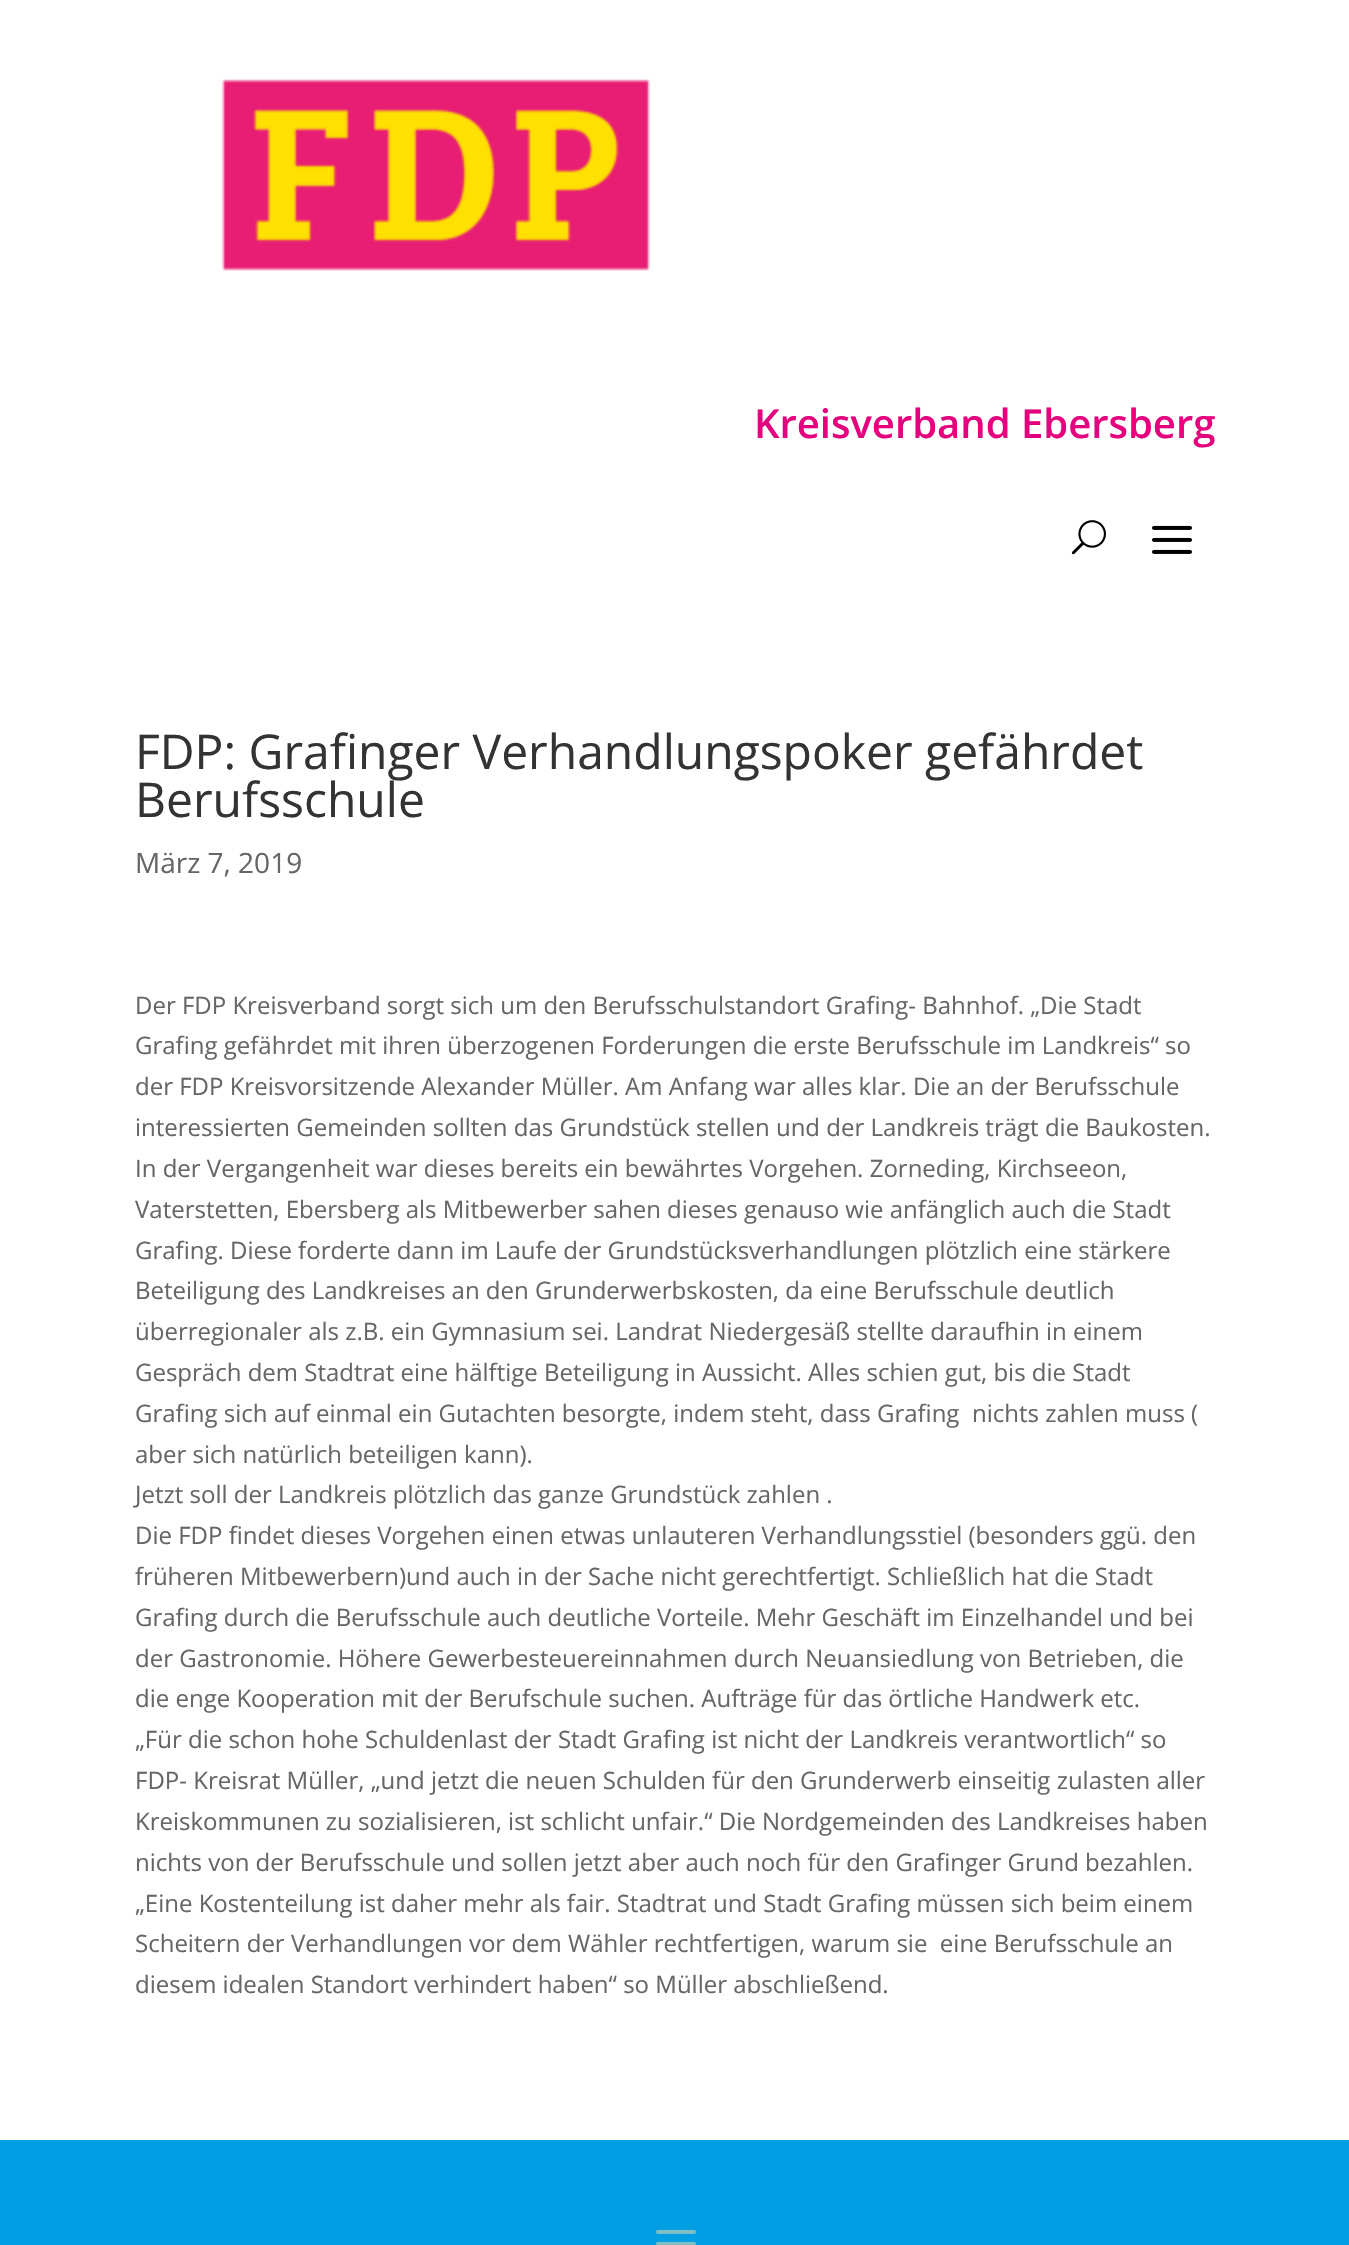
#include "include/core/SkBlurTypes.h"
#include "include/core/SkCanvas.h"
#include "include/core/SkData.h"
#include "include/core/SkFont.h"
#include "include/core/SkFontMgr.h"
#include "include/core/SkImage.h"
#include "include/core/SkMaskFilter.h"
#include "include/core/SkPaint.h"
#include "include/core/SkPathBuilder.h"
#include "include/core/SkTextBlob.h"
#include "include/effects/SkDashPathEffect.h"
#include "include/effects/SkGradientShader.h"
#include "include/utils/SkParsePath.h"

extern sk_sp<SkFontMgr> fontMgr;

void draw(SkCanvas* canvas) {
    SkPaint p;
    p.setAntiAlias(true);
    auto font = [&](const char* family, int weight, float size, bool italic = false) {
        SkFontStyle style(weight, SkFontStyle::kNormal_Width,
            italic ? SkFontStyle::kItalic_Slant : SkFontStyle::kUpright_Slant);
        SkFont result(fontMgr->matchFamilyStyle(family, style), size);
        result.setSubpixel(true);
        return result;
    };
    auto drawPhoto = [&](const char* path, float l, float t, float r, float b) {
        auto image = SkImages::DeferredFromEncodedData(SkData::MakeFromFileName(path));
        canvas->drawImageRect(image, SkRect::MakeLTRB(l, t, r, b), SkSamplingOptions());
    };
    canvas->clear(0xFFFFFFFF);
    drawPhoto("media/1.png", 221, 79, 651, 271);
    auto font1 = font("Open Sans", 600, 40);
    p.setColor(0xFFE5007D);
    canvas->drawString("Kreisverband Ebersberg", 754, 438, font1, p);
    drawPhoto("media/2.png", 1071, 520, 1106, 555);
    drawPhoto("media/3.png", 1152, 525, 1192, 554);
    auto font2 = font("Open Sans", 400, 48);
    p.setColor(0xFF333333);
    canvas->drawString("FDP: Grafinger Verhandlungspoker gefährdet", 135, 769, font2, p);
    canvas->drawString("Berufsschule", 135, 817, font2, p);
    auto font3 = font("Open Sans", 400, 28);
    p.setColor(0xFF666666);
    canvas->drawString("März 7, 2019", 135, 873, font3, p);
    auto font4 = font("Open Sans", 400, 24);
    {
        const struct { const char* s; float x, y; } items[] = {
            {"Der FDP Kreisverband sorgt sich um den Berufsschulstandort Grafing- Bahnhof. „Die Stadt", 135, 1014},
            {"Grafing gefährdet mit ihren überzogenen Forderungen die erste Berufsschule im Landkreis“ so", 135, 1054},
            {"der FDP Kreisvorsitzende Alexander Müller. Am Anfang war alles klar. Die an der Berufsschule", 135, 1095},
            {"interessierten Gemeinden sollten das Grundstück stellen und der Landkreis trägt die Baukosten.", 135, 1136},
            {"In der Vergangenheit war dieses bereits ein bewährtes Vorgehen. Zorneding, Kirchseeon,", 135, 1177},
            {"Vaterstetten, Ebersberg als Mitbewerber sahen dieses genauso wie anfänglich auch die Stadt", 135, 1218},
            {"Grafing. Diese forderte dann im Laufe der Grundstücksverhandlungen plötzlich eine stärkere", 135, 1259},
            {"Beteiligung des Landkreises an den Grunderwerbskosten, da eine Berufsschule deutlich", 135, 1299},
            {"überregionaler als z.B. ein Gymnasium sei. Landrat Niedergesäß stellte daraufhin in einem", 135, 1340},
            {"Gespräch dem Stadtrat eine hälftige Beteiligung in Aussicht. Alles schien gut, bis die Stadt", 135, 1381},
            {"Grafing sich auf einmal ein Gutachten besorgte, indem steht, dass Grafing", 135, 1422},
            {"nichts zahlen muss (", 972, 1422},
            {"aber sich natürlich beteiligen kann).", 135, 1463},
            {"Jetzt soll der Landkreis plötzlich das ganze Grundstück zahlen .", 135, 1503},
            {"Die FDP findet dieses Vorgehen einen etwas unlauteren Verhandlungsstiel (besonders ggü. den", 135, 1544},
            {"früheren Mitbewerbern)und auch in der Sache nicht gerechtfertigt. Schließlich hat die Stadt", 135, 1585},
            {"Grafing durch die Berufsschule auch deutliche Vorteile. Mehr Geschäft im Einzelhandel und bei", 135, 1626},
            {"der Gastronomie. Höhere Gewerbesteuereinnahmen durch Neuansiedlung von Betrieben, die", 135, 1667},
            {"die enge Kooperation mit der Berufschule suchen. Aufträge für das örtliche Handwerk etc.", 135, 1707},
            {"„Für die schon hohe Schuldenlast der Stadt Grafing ist nicht der Landkreis verantwortlich“ so", 135, 1748},
            {"FDP- Kreisrat Müller, „und jetzt die neuen Schulden für den Grunderwerb einseitig zulasten aller", 135, 1789},
            {"Kreiskommunen zu sozialisieren, ist schlicht unfair.“ Die Nordgemeinden des Landkreises haben", 135, 1830},
            {"nichts von der Berufsschule und sollen jetzt aber auch noch für den Grafinger Grund bezahlen.", 135, 1871},
            {"„Eine Kostenteilung ist daher mehr als fair. Stadtrat und Stadt Grafing müssen sich beim einem", 135, 1912},
            {"Scheitern der Verhandlungen vor dem Wähler rechtfertigen, warum sie  eine Berufsschule an", 135, 1952},
            {"diesem idealen Standort verhindert haben“ so Müller abschließend.", 135, 1993},
        };
        for (auto [s, x, y] : items) {
            canvas->drawString(s, x, y, font4, p);
        }
    }
    p.setColor(0xFF009EE3);
    canvas->drawRect(SkRect::MakeLTRB(0, 2140, 1349, 2245), p);
    drawPhoto("media/4.png", 656, 2229, 696, 2245);
}
